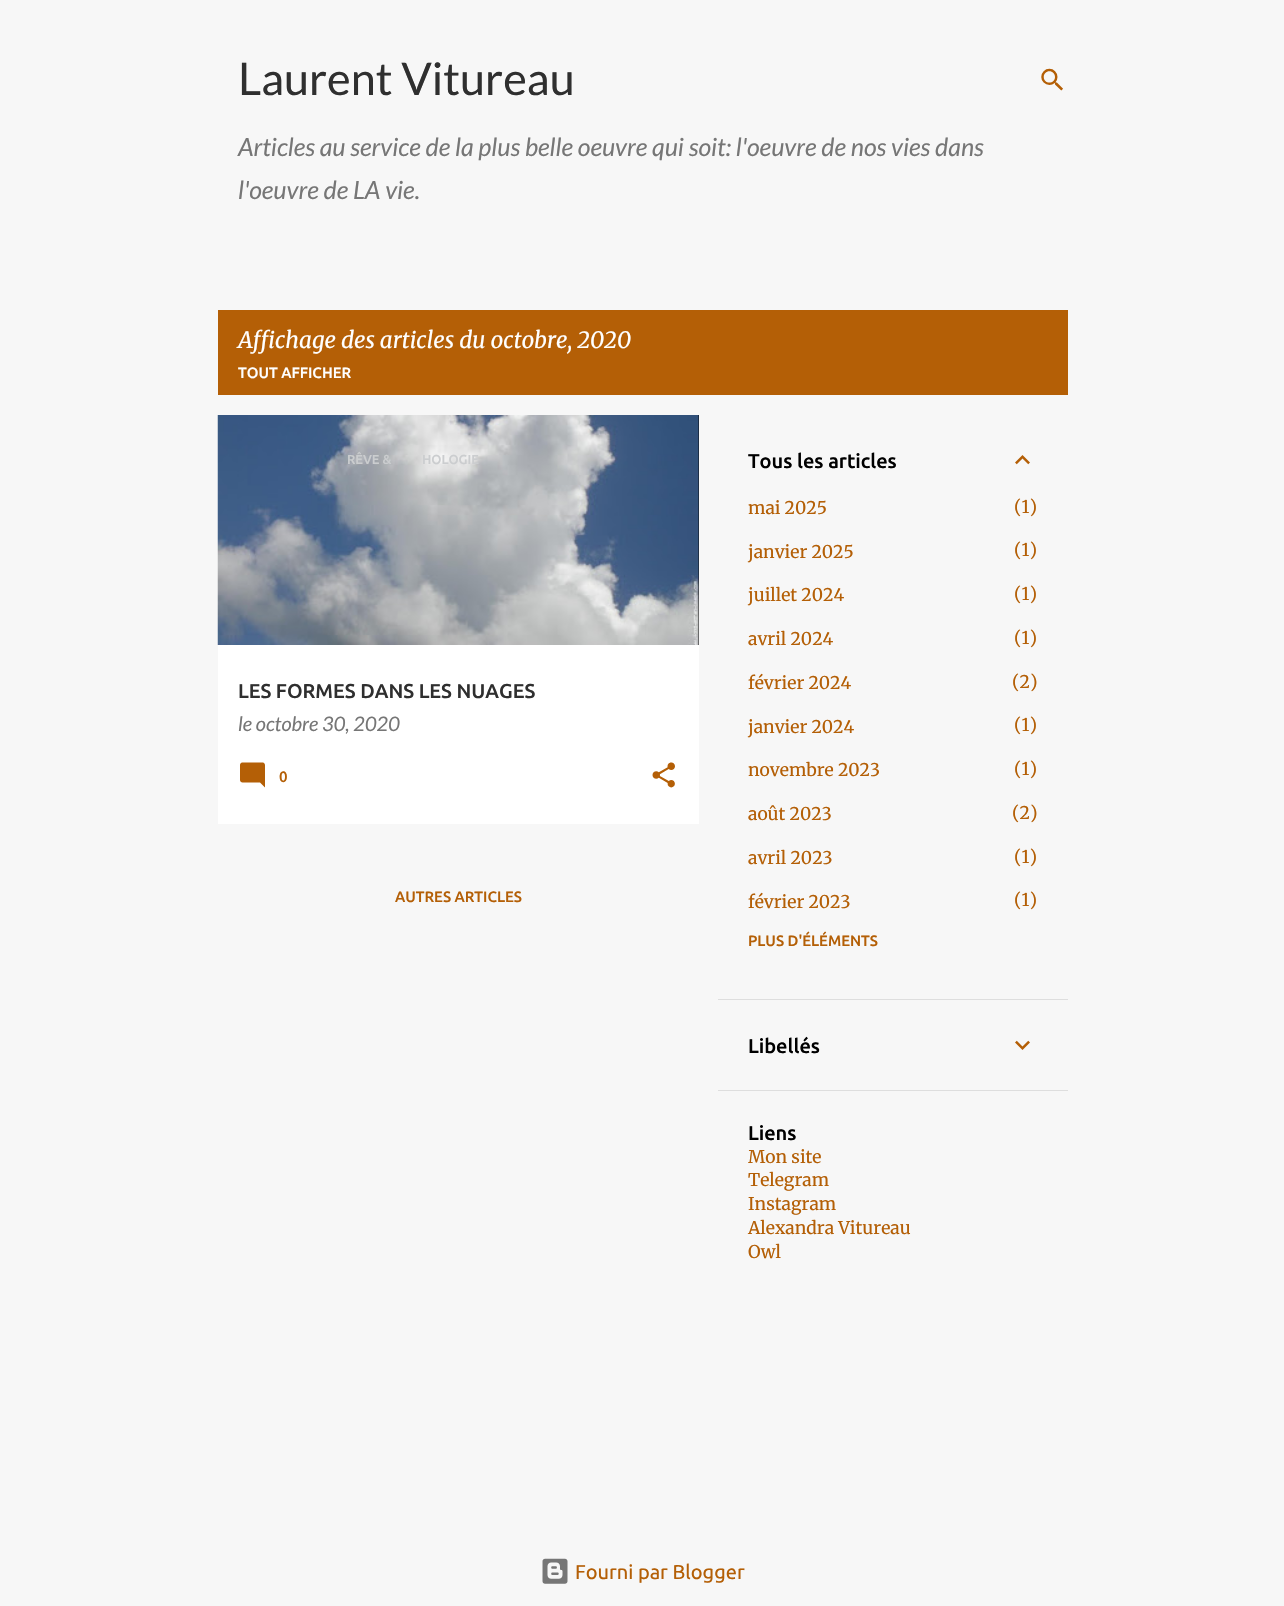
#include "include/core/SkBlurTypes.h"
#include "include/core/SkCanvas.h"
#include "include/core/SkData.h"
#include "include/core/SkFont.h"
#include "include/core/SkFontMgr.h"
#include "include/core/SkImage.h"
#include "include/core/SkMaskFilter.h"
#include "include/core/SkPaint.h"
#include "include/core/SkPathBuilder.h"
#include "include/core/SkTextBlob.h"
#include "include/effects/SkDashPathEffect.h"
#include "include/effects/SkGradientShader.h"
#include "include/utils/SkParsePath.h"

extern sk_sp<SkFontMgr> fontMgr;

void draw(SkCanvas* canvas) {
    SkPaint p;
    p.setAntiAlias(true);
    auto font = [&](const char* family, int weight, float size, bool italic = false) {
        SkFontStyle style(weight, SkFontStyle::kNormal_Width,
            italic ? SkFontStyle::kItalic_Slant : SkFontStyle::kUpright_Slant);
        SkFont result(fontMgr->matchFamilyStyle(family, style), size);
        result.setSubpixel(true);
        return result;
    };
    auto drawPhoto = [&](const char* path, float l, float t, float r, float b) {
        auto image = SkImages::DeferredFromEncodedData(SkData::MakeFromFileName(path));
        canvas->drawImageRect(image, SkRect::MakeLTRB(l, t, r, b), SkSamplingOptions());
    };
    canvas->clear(0xFFF7F7F7);
    auto font1 = font("Lato", 400, 45);
    p.setColor(0xFF2F2F2F);
    canvas->drawString("Laurent Vitureau", 238, 95, font1, p);
    auto font2 = font("Lato", 400, 25, true);
    p.setColor(0xFF767676);
    canvas->drawString("Articles au service de la plus belle oeuvre qui soit: l'oeuvre de nos vies dans", 238, 156, font2, p);
    canvas->drawString("l'oeuvre de LA vie.", 238, 199, font2, p);
    drawPhoto("media/1.png", 1041, 68, 1063, 91);
    p.setColor(0xFFB45F06);
    canvas->drawRect(SkRect::MakeLTRB(218, 310, 1068, 395), p);
    auto font3 = font("Merriweather", 300, 22.5f, true);
    p.setColor(0xFFFFFFFF);
    canvas->drawString("Affichage des articles du octobre, 2020", 238, 348, font3, p);
    auto font4 = font("Ubuntu", 500, 15);
    canvas->drawString("TOUT AFFICHER", 238, 378, font4, p);
    canvas->drawRect(SkRect::MakeLTRB(218, 645, 699, 824), p);
    p.setColor(0xFF000000);
    canvas->drawRect(SkRect::MakeLTRB(698, 415, 699, 645), p);
    drawPhoto("media/2.png", 217, 415, 699, 645);
    auto font5 = font("Ubuntu", 500, 13);
    p.setColor(0xFFCBCDCF);
    canvas->drawString("RÊVE &", 347, 464, font5, p);
    canvas->drawString("HOLOGIE", 422, 464, font5, p);
    auto font6 = font("Lato", 400, 20, true);
    p.setColor(0xFF767676);
    canvas->drawString("le octobre 30, 2020", 238, 731, font6, p);
    auto font7 = font("Ubuntu", 500, 20);
    p.setColor(0xFF2F2F2F);
    canvas->drawString("LES FORMES DANS LES NUAGES", 238, 698, font7, p);
    drawPhoto("media/3.png", 240, 762, 265, 788);
    p.setColor(0xFFB45F06);
    canvas->drawString("0", 279, 782, font4, p);
    drawPhoto("media/4.png", 652, 762, 675, 788);
    canvas->drawString("AUTRES ARTICLES", 395, 902, font4, p);
    canvas->save();
    canvas->clipRect(SkRect::MakeLTRB(748, 449, 1008, 471));
    p.setColor(0xFF000000);
    canvas->drawString("Tous les articles", 748, 468, font7, p);
    canvas->restore();
    drawPhoto("media/5.png", 1015, 455, 1030, 465);
    auto font8 = font("Merriweather", 300, 17.5f);
    p.setColor(0xFFB45F06);
    {
        const struct { const char* s; float x, y; } items[] = {
            {"mai 2025", 748, 514},
            {"(1)", 1014, 513},
            {"janvier 2025", 748, 558},
            {"(1)", 1014, 556},
            {"juillet 2024", 748, 601},
            {"(1)", 1014, 600},
            {"avril 2024", 748, 645},
            {"(1)", 1014, 644},
            {"février 2024", 748, 689},
            {"(2)", 1012, 688},
            {"janvier 2024", 748, 733},
            {"(1)", 1014, 731},
            {"novembre 2023", 748, 776},
            {"(1)", 1014, 775},
            {"août 2023", 748, 820},
            {"(2)", 1012, 819},
            {"avril 2023", 748, 864},
            {"(1)", 1014, 863},
            {"février 2023", 748, 908},
            {"(1)", 1014, 906},
        };
        for (auto [s, x, y] : items) {
            canvas->drawString(s, x, y, font8, p);
        }
    }
    canvas->drawString("PLUS D'ÉLÉMENTS", 748, 946, font4, p);
    p.setColor(0xFFDEDEDE);
    canvas->drawRect(SkRect::MakeLTRB(718, 999, 1068, 1000), p);
    p.setColor(0xFF000000);
    canvas->drawString("Libellés", 748, 1053, font7, p);
    drawPhoto("media/6.png", 1015, 1040, 1030, 1050);
    p.setColor(0xFFDEDEDE);
    canvas->drawRect(SkRect::MakeLTRB(718, 1090, 1068, 1091), p);
    p.setColor(0xFF000000);
    canvas->drawString("Liens", 748, 1140, font7, p);
    p.setColor(0xFFB45F06);
    {
        const struct { const char* s; float x, y; } items[] = {
            {"Mon site", 748, 1163},
            {"Telegram", 748, 1186},
            {"Instagram", 748, 1210},
            {"Alexandra Vitureau", 748, 1234},
            {"Owl", 748, 1258},
        };
        for (auto [s, x, y] : items) {
            canvas->drawString(s, x, y, font8, p);
        }
    }
    drawPhoto("media/7.png", 542, 1558, 568, 1584);
    auto font9 = font("Ubuntu", 400, 20);
    canvas->drawString("Fourni par Blogger", 575, 1579, font9, p);
}
